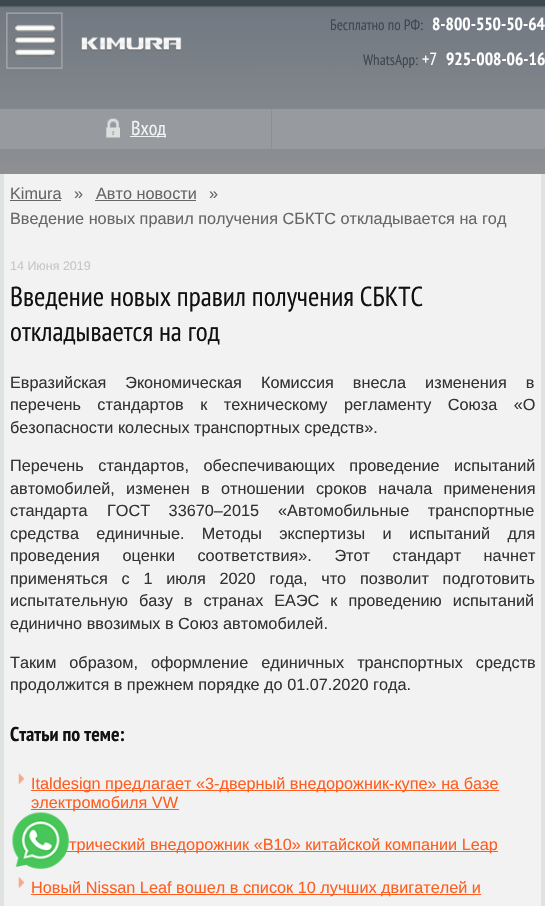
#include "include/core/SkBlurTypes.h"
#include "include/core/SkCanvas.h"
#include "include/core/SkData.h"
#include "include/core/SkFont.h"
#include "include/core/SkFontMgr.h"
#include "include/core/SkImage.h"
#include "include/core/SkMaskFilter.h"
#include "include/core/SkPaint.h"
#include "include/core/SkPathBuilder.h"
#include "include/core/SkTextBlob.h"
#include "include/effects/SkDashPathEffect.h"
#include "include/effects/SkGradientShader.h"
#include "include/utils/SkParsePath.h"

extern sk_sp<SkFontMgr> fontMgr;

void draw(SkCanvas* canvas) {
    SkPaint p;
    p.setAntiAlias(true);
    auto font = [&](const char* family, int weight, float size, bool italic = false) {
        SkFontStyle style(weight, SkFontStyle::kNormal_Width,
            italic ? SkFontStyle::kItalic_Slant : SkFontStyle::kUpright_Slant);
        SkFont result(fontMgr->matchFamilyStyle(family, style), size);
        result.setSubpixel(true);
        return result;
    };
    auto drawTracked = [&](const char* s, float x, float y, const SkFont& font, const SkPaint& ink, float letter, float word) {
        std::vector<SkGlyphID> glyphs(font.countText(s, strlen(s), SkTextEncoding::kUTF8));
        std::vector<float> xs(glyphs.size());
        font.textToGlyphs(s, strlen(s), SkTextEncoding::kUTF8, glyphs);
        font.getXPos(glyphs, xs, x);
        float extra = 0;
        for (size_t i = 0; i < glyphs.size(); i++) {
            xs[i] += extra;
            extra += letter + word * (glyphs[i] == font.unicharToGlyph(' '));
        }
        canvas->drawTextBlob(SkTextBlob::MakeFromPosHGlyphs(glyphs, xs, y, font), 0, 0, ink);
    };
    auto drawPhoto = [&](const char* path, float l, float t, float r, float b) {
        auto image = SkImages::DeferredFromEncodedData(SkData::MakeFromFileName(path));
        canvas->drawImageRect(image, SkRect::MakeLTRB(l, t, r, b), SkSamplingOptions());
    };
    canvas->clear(0xFFFFFFFF);
    drawPhoto("media/1.png", 0, 0, 545, 174);
    drawPhoto("media/2.png", 6, 12, 63, 69);
    drawPhoto("media/3.png", 81, 37, 182, 51);
    auto font1 = font("PT Sans Narrow", 400, 15);
    p.setColor(0xFF3D484E);
    canvas->drawString("Бесплатно по РФ:", 330, 30, font1, p);
    auto font2 = font("PT Sans Narrow", 700, 17.5f);
    p.setColor(0xFFFFFFFF);
    canvas->drawString("8-800-550-50-64", 432, 30, font2, p);
    p.setColor(0xFF3D484E);
    canvas->drawString("WhatsApp:", 363, 65, font1, p);
    auto font3 = font("PT Sans Narrow", 400, 17.5f);
    p.setColor(0xFFFFFFFF);
    canvas->drawString("+7", 422, 65, font3, p);
    canvas->drawString("925-008-06-16", 446, 65, font2, p);
    p.setColor(0xFF979B9F);
    canvas->drawRect(SkRect::MakeLTRB(0, 109, 545, 149), p);
    p.setColor(0xFF8C8F92);
    canvas->drawRect(SkRect::MakeLTRB(271, 109, 272, 149), p);
    drawPhoto("media/4.png", 105, 118, 120, 138);
    p.setColor(0xFFF2F2F2);
    canvas->drawRect(SkRect::MakeLTRB(130, 136, 166, 137), p);
    auto font4 = font("PT Sans Narrow", 400, 20);
    canvas->drawString("Вход", 131, 135, font4, p);
    {
        const struct { float l, t, r, b; SkColor color; } items[] = {
            {4, 174, 541, 906, 0xFFF2F2F2},
            {541, 174, 545, 906, 0xFFDEE3DF},
            {0, 174, 4, 906, 0xFFDEE3DF},
        };
        for (auto [l, t, r, b, color] : items) {
            p.setColor(color);
            canvas->drawRect(SkRect::MakeLTRB(l, t, r, b), p);
        }
    }
    auto font5 = font("Liberation Sans", 400, 16.25f);
    p.setColor(0xFF666666);
    canvas->drawString("Kimura", 10, 199, font5, p);
    canvas->drawRect(SkRect::MakeLTRB(10, 200, 61, 201), p);
    canvas->drawString("»", 74, 199, font5, p);
    canvas->drawString("Авто новости", 96, 199, font5, p);
    canvas->drawRect(SkRect::MakeLTRB(95, 200, 196, 201), p);
    canvas->drawString("»", 209, 199, font5, p);
    canvas->drawString("Введение новых правил получения СБКТС откладывается на год", 10, 224, font5, p);
    auto font6 = font("Liberation Sans", 400, 12.5f);
    p.setColor(0xFFC7C7C7);
    canvas->drawString("14 Июня 2019", 10, 270, font6, p);
    auto font7 = font("PT Sans Narrow", 400, 27.5f);
    p.setColor(0xFF111111);
    canvas->drawString("Введение новых правил получения СБКТС", 10, 306, font7, p);
    canvas->drawString("откладывается на год", 10, 341, font7, p);
    p.setColor(0xFF333333);
    drawTracked("Евразийская Экономическая Комиссия внесла изменения в", 10, 388, font5, p, 0, 14.5f);
    drawTracked("перечень стандартов к техническому регламенту Союза «О", 10, 410, font5, p, 0, 12);
    canvas->drawString("безопасности колесных транспортных средств».", 10, 433, font5, p);
    drawTracked("Перечень стандартов, обеспечивающих проведение испытаний", 10, 471, font5, p, 0, 10);
    drawTracked("автомобилей, изменен в отношении сроков начала применения", 10, 494, font5, p, 0, 6.75f);
    canvas->drawString("стандарта", 10, 516, font5, p);
    drawTracked("ГОСТ 33670–2015", 107, 516, font5, p, 0, 14);
    drawTracked("«Автомобильные транспортные", 278, 516, font5, p, 0, 14);
    drawTracked("средства единичные. Методы экспертизы и испытаний для", 10, 539, font5, p, 0, 12.75f);
    drawTracked("проведения оценки соответствия». Этот стандарт начнет", 10, 561, font5, p, 0, 18);
    drawTracked("применяться с 1 июля 2020 года, что позволит подготовить", 10, 584, font5, p, 0, 9.25f);
    drawTracked("испытательную базу в странах ЕАЭС к проведению испытаний", 10, 606, font5, p, 0, 6.5f);
    canvas->drawString("единично ввозимых в Союз автомобилей.", 10, 629, font5, p);
    drawTracked("Таким образом, оформление единичных транспортных средств", 10, 668, font5, p, 0, 8.5f);
    canvas->drawString("продолжится в прежнем порядке до 01.07.2020 года.", 10, 690, font5, p);
    auto font8 = font("PT Sans Narrow", 700, 20);
    p.setColor(0xFF111111);
    canvas->drawString("Статьи по теме:", 10, 741, font8, p);
    drawPhoto("media/5.png", 18, 773, 24, 784);
    p.setColor(0xFFFE5E20);
    canvas->drawRect(SkRect::MakeLTRB(31, 790, 499, 791), p);
    canvas->drawString("Italdesign предлагает «3-дверный внедорожник-купе» на базе", 31, 789, font5, p);
    canvas->drawRect(SkRect::MakeLTRB(31, 809, 179, 810), p);
    canvas->drawString("электромобиля VW", 31, 808, font5, p);
    canvas->drawRect(SkRect::MakeLTRB(66, 851, 498, 852), p);
    canvas->drawString("трический внедорожник «B10» китайской компании Leap", 69, 850, font5, p);
    drawPhoto("media/6.png", 18, 877, 24, 888);
    canvas->drawRect(SkRect::MakeLTRB(31, 894, 481, 895), p);
    canvas->drawString("Новый Nissan Leaf вошел в список 10 лучших двигателей и", 31, 893, font5, p);
    drawPhoto("media/7.png", 12, 812, 69, 869);
}
